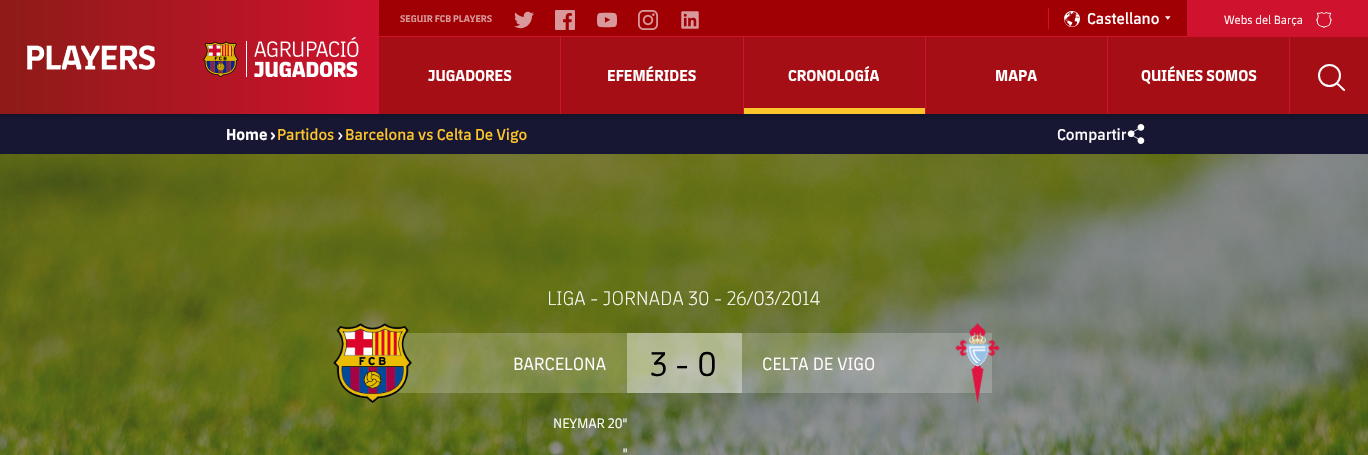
#include "include/core/SkBlurTypes.h"
#include "include/core/SkCanvas.h"
#include "include/core/SkData.h"
#include "include/core/SkFont.h"
#include "include/core/SkFontMgr.h"
#include "include/core/SkImage.h"
#include "include/core/SkMaskFilter.h"
#include "include/core/SkPaint.h"
#include "include/core/SkPathBuilder.h"
#include "include/core/SkTextBlob.h"
#include "include/effects/SkDashPathEffect.h"
#include "include/effects/SkGradientShader.h"
#include "include/utils/SkParsePath.h"

extern sk_sp<SkFontMgr> fontMgr;

void draw(SkCanvas* canvas) {
    SkPaint p;
    p.setAntiAlias(true);
    auto font = [&](const char* family, int weight, float size, bool italic = false) {
        SkFontStyle style(weight, SkFontStyle::kNormal_Width,
            italic ? SkFontStyle::kItalic_Slant : SkFontStyle::kUpright_Slant);
        SkFont result(fontMgr->matchFamilyStyle(family, style), size);
        result.setSubpixel(true);
        return result;
    };
    auto drawPhoto = [&](const char* path, float l, float t, float r, float b) {
        auto image = SkImages::DeferredFromEncodedData(SkData::MakeFromFileName(path));
        canvas->drawImageRect(image, SkRect::MakeLTRB(l, t, r, b), SkSamplingOptions());
    };
    canvas->clear(0xFFFFFFFF);
    p.setColor(0xFF171733);
    canvas->drawRect(SkRect::MakeLTRB(0, 114, 1368, 154), p);
    p.setColor(0x40000000);
    p.setMaskFilter(SkMaskFilter::MakeBlur(kNormal_SkBlurStyle, 2));
    canvas->drawRect(SkRect::MakeLTRB(0, 113, 1368, 117), p);
    p.setMaskFilter(nullptr);
    {
        const SkColor colors[] = {0xFF8D1B17, 0xFFCF122E};
        const float stops[] = {0, 1};
        const SkPoint ends[] = {{0, 57}, {378, 57}};
        p.setShader(SkGradientShader::MakeLinear(ends, colors, stops, 2, SkTileMode::kClamp));
        p.setAlpha(255);
    }
    canvas->drawRect(SkRect::MakeLTRB(0, 0, 378, 114), p);
    p.setShader(nullptr);
    p.setColor(0xFFCD122D);
    canvas->drawRect(SkRect::MakeLTRB(378, 8, 379, 36), p);
    drawPhoto("media/1.png", 27, 45, 155, 70);
    drawPhoto("media/2.png", 203, 37, 359, 77);
    p.setColor(0xFFA00003);
    canvas->drawRect(SkRect::MakeLTRB(379, 0, 1187, 36), p);
    p.setColor(0xFFCF122D);
    canvas->drawRect(SkRect::MakeLTRB(378, 0, 379, 8), p);
    auto font1 = font("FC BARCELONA", 700, 10);
    p.setColor(0xFFD9999A);
    canvas->drawString("SEGUIR FCB PLAYERS", 400, 22, font1, p);
    drawPhoto("media/3.png", 514, 11, 534, 29);
    drawPhoto("media/4.png", 555, 10, 575, 30);
    drawPhoto("media/5.png", 597, 12, 617, 28);
    drawPhoto("media/6.png", 638, 10, 658, 30);
    drawPhoto("media/7.png", 681, 11, 699, 29);
    p.setColor(0xFFCF122D);
    canvas->drawRect(SkRect::MakeLTRB(1048, 8, 1049, 29), p);
    drawPhoto("media/8.png", 1064, 11, 1080, 27);
    auto font2 = font("FC BARCELONA", 600, 16);
    p.setColor(0xFFFFFFFF);
    canvas->drawString("Castellano", 1087, 24, font2, p);
    drawPhoto("media/9.png", 1165, 16, 1171, 20);
    p.setColor(0xFFCF122D);
    canvas->drawRect(SkRect::MakeLTRB(1187, 0, 1188, 36), p);
    canvas->drawRect(SkRect::MakeLTRB(1188, 0, 1368, 37), p);
    auto font3 = font("FC BARCELONA", 400, 12);
    p.setColor(0xFFFFFFFF);
    canvas->drawString("Webs del Barça", 1224, 24, font3, p);
    drawPhoto("media/10.png", 1316, 12, 1332, 28);
    {
        const struct { float l, t, r, b; SkColor color; } items[] = {
            {378, 36, 1188, 37, 0xFFCF122D},
            {378, 37, 379, 114, 0xFFCF122D},
            {379, 37, 560, 114, 0xFFA60E15},
            {560, 37, 561, 114, 0xFFCF122D},
        };
        for (auto [l, t, r, b, color] : items) {
            p.setColor(color);
            canvas->drawRect(SkRect::MakeLTRB(l, t, r, b), p);
        }
    }
    auto font4 = font("FC BARCELONA", 700, 16);
    p.setColor(0xFFFFFFFF);
    canvas->drawString("JUGADORES", 428, 81, font4, p);
    p.setColor(0xFFA60E15);
    canvas->drawRect(SkRect::MakeLTRB(561, 37, 743, 114), p);
    p.setColor(0xFFCF122D);
    canvas->drawRect(SkRect::MakeLTRB(743, 37, 744, 114), p);
    p.setColor(0xFFFFFFFF);
    canvas->drawString("EFEMÉRIDES", 607, 81, font4, p);
    p.setColor(0xFFA60E15);
    canvas->drawRect(SkRect::MakeLTRB(744, 37, 925, 108), p);
    p.setColor(0xFFCF122D);
    canvas->drawRect(SkRect::MakeLTRB(925, 37, 926, 114), p);
    p.setColor(0xFFFFFFFF);
    canvas->drawString("CRONOLOGÍA", 788, 81, font4, p);
    {
        const struct { float l, t, r, b; SkColor color; } items[] = {
            {744, 108, 925, 114, 0xFFFDC52C},
            {926, 37, 1107, 114, 0xFFA60E15},
            {1107, 37, 1108, 114, 0xFFCF122D},
        };
        for (auto [l, t, r, b, color] : items) {
            p.setColor(color);
            canvas->drawRect(SkRect::MakeLTRB(l, t, r, b), p);
        }
    }
    p.setColor(0xFFFFFFFF);
    canvas->drawString("MAPA", 995, 81, font4, p);
    p.setColor(0xFFA60E15);
    canvas->drawRect(SkRect::MakeLTRB(1108, 37, 1289, 114), p);
    p.setColor(0xFFCF122D);
    canvas->drawRect(SkRect::MakeLTRB(1289, 37, 1290, 114), p);
    p.setColor(0xFFFFFFFF);
    canvas->drawString("QUIÉNES SOMOS", 1141, 81, font4, p);
    p.setColor(0xFFA60E15);
    canvas->drawRect(SkRect::MakeLTRB(1290, 37, 1368, 114), p);
    p.setStyle(SkPaint::kStroke_Style);
    p.setStrokeWidth(2);
    p.setColor(0xFFFFFFFF);
    canvas->drawCircle(1329.5f, 75.5f, 10.5f, p);
    p.setStyle(SkPaint::kFill_Style);
    canvas->drawPath(SkPathBuilder().moveTo(1337.5f, 82.5f).lineTo(1345, 89.5f).lineTo(1345, 90.5f).cubicTo(1344.5f, 92, 1342.5f, 90, 1342, 89.5f).lineTo(1338.5f, 86).cubicTo(1338, 85.5f, 1335, 83.5f, 1336.5f, 82.5f).cubicTo(1336.5f, 82, 1337.5f, 82, 1337.5f, 82.5f).close().detach(), p);
    canvas->drawString("Home ›", 226, 140, font4, p);
    p.setColor(0xFFFDC52C);
    canvas->drawString("Partidos", 277, 140, font2, p);
    p.setColor(0xFFFFFFFF);
    canvas->drawString("›", 338, 140, font2, p);
    p.setColor(0xFFFDC52C);
    canvas->drawString("Barcelona vs Celta De Vigo", 345, 140, font2, p);
    drawPhoto("media/11.png", 1127, 124, 1145, 144);
    p.setColor(0xFFFFFFFF);
    canvas->drawString("Compartir", 1057, 140, font2, p);
    drawPhoto("media/12.png", 0, 154, 1368, 455);
    auto font5 = font("FC BARCELONA", 300, 20);
    canvas->drawString("LIGA - JORNADA 30 - 26/03/2014", 547, 305, font5, p);
    p.setColor(0x33FFFFFF);
    canvas->drawRect(SkRect::MakeLTRB(396, 333, 627, 393), p);
    drawPhoto("media/13.png", 333, 323, 412, 403);
    auto font6 = font("FC BARCELONA", 400, 18);
    p.setColor(0xFFFFFFFF);
    canvas->drawString("BARCELONA", 513, 370, font6, p);
    p.setColor(0x80FFFFFF);
    canvas->drawRect(SkRect::MakeLTRB(627, 333, 742, 393), p);
    auto font7 = font("FC BARCELONA", 400, 35);
    p.setColor(0xFF000000);
    canvas->drawString("3 - 0", 650, 376, font7, p);
    p.setColor(0x33FFFFFF);
    canvas->drawRect(SkRect::MakeLTRB(742, 333, 992, 393), p);
    p.setColor(0xFFFFFFFF);
    canvas->drawString("CELTA DE VIGO", 762, 370, font6, p);
    drawPhoto("media/14.png", 955, 323, 1000, 403);
    auto font8 = font("FC BARCELONA", 400, 14);
    canvas->drawString("NEYMAR 20\"", 553, 428, font8, p);
    canvas->drawString("\"", 623, 458, font8, p);
}
